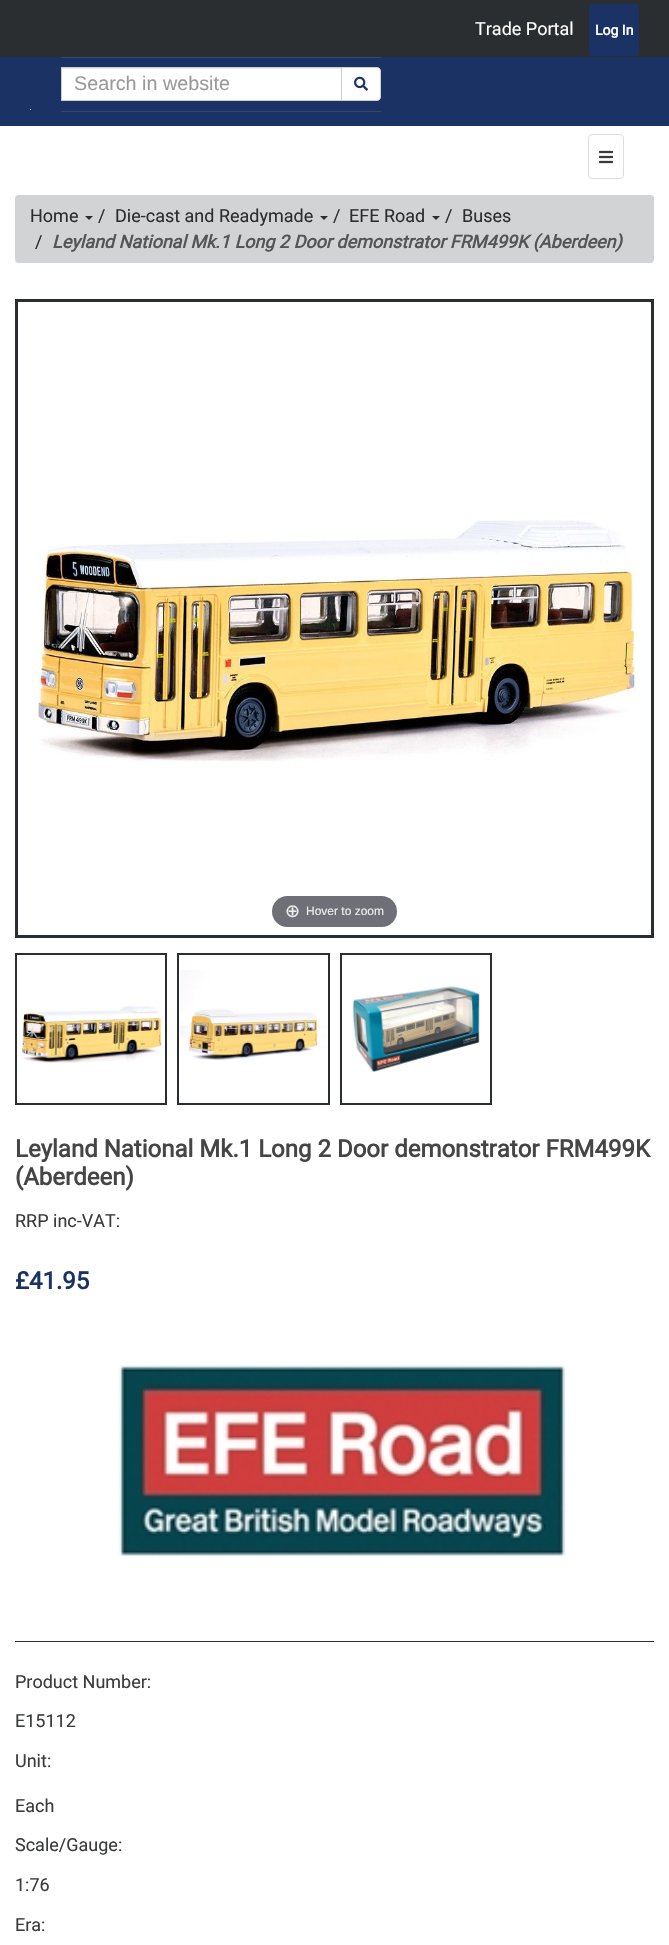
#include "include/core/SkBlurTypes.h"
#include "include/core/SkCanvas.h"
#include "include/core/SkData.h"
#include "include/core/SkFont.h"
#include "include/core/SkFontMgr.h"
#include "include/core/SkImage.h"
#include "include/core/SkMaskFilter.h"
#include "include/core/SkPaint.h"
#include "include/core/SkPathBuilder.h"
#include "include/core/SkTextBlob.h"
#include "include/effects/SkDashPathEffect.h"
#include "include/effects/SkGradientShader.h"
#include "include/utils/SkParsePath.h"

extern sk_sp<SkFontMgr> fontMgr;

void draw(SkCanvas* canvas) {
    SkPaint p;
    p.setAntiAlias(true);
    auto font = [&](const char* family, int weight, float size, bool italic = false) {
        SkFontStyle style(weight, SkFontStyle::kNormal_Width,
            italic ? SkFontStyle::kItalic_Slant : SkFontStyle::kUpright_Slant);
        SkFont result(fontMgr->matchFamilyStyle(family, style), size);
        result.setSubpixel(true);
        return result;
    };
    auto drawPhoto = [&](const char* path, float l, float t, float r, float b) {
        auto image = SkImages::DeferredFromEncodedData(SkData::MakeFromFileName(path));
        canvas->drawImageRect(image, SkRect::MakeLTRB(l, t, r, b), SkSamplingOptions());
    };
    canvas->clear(0xFFFFFFFF);
    p.setColor(0xFF2A2E30);
    canvas->drawRect(SkRect::MakeLTRB(0, 0, 669, 57), p);
    auto font1 = font("Roboto", 400, 18);
    p.setColor(0xFFFFFFFF);
    canvas->drawString("Trade Portal", 475, 35, font1, p);
    p.setColor(0xFF1B3364);
    canvas->drawRoundRect(SkRect::MakeLTRB(589.5f, 4.5f, 638.5f, 55.5f), 3.5f, 3.5f, p);
    p.setStyle(SkPaint::kStroke_Style);
    p.setStrokeWidth(1);
    canvas->drawRoundRect(SkRect::MakeLTRB(589.5f, 4.5f, 638.5f, 55.5f), 3.5f, 3.5f, p);
    auto font2 = font("Roboto", 700, 14);
    p.setStyle(SkPaint::kFill_Style);
    p.setColor(0xFFFFFFFF);
    canvas->drawString("Log In", 595, 35, font2, p);
    {
        const struct { float l, t, r, b; SkColor color; } items[] = {
            {0, 57, 669, 126, 0xFF1B3364},
            {61, 111, 381, 112, 0xFF324774},
            {61, 57, 381, 58, 0xFF324774},
            {62, 69, 341, 100, 0xFFFFFFFF},
            {62, 68, 341, 69, 0xFFECECEC},
        };
        for (auto [l, t, r, b, color] : items) {
            p.setColor(color);
            canvas->drawRect(SkRect::MakeLTRB(l, t, r, b), p);
        }
    }
    p.setStyle(SkPaint::kStroke_Style);
    p.setColor(0xFFCCCCCC);
    canvas->drawRect(SkRect::MakeLTRB(61.5f, 67.5f, 341.5f, 100.5f), p);
    auto font3 = font("Liberation Sans", 400, 19.75f);
    p.setStyle(SkPaint::kFill_Style);
    p.setColor(0xFF999999);
    canvas->drawString("Search in website", 74, 90, font3, p);
    p.setColor(0xFFFFFFFF);
    canvas->drawPath(SkPathBuilder().moveTo(341.5f, 67.5f).lineTo(377, 67.5f).cubicTo(379, 67.5f, 380.5f, 69, 380.5f, 71).lineTo(380.5f, 97).cubicTo(380.5f, 99, 379, 100.5f, 377, 100.5f).lineTo(341.5f, 100.5f).close().detach(), p);
    p.setStyle(SkPaint::kStroke_Style);
    p.setColor(0xFFCCCCCC);
    canvas->drawPath(SkPathBuilder().moveTo(341.5f, 67.5f).lineTo(377, 67.5f).cubicTo(379, 67.5f, 380.5f, 69, 380.5f, 71).lineTo(380.5f, 97).cubicTo(380.5f, 99, 379, 100.5f, 377, 100.5f).lineTo(341.5f, 100.5f).close().detach(), p);
    drawPhoto("media/1.png", 354, 76, 368, 91);
    p.setStyle(SkPaint::kFill_Style);
    p.setColor(0xFFE7E7E7);
    canvas->drawRect(SkRect::MakeLTRB(30, 109, 31, 110), p);
    p.setStyle(SkPaint::kStroke_Style);
    p.setColor(0xFFDDDDDD);
    canvas->drawRoundRect(SkRect::MakeLTRB(588.5f, 134.5f, 623.5f, 178.5f), 3.5f, 3.5f, p);
    drawPhoto("media/2.png", 599, 150, 613, 164);
    p.setStyle(SkPaint::kFill_Style);
    p.setColor(0xFFD2D3D5);
    canvas->drawRoundRect(SkRect::MakeLTRB(15, 195, 654, 263), 4, 4, p);
    p.setColor(0xFF2A2E30);
    canvas->drawString("Home", 30, 222, font1, p);
    canvas->drawPath(SkPathBuilder().moveTo(85, 216).lineTo(93, 216).lineTo(89, 220).close().detach(), p);
    canvas->drawString("/", 98, 222, font1, p);
    canvas->drawString("Die-cast and Readymade", 115, 222, font1, p);
    canvas->drawPath(SkPathBuilder().moveTo(320, 216).lineTo(328, 216).lineTo(324, 220).close().detach(), p);
    canvas->drawString("/", 333, 222, font1, p);
    canvas->drawString("EFE Road", 349, 222, font1, p);
    canvas->drawPath(SkPathBuilder().moveTo(432, 216).lineTo(440, 216).lineTo(436, 220).close().detach(), p);
    {
        const struct { const char* s; float x, y; } items[] = {
            {"/", 445, 222},
            {"Buses", 462, 222},
            {"/", 35, 248},
        };
        for (auto [s, x, y] : items) {
            canvas->drawString(s, x, y, font1, p);
        }
    }
    auto font4 = font("Roboto", 700, 18, true);
    p.setColor(0xFF555555);
    canvas->drawString("Leyland National Mk.1 Long 2 Door demonstrator FRM499K (Aberdeen)", 52, 248, font4, p);
    p.setStyle(SkPaint::kStroke_Style);
    p.setStrokeWidth(3);
    p.setColor(0xFF2A2E30);
    canvas->drawRect(SkRect::MakeLTRB(16.5f, 300.5f, 652.5f, 936.5f), p);
    drawPhoto("media/3.png", 38, 520, 636, 763);
    p.setStyle(SkPaint::kFill_Style);
    p.setColor(0xFF6F7077);
    canvas->drawRoundRect(SkRect::MakeLTRB(272, 896, 397, 927), 15.5f, 15.5f, p);
    auto font5 = font("DejaVu Sans", 400, 18);
    p.setColor(0xFFEEEEEE);
    canvas->drawString("⊕", 285, 917, font5, p);
    auto font6 = font("Liberation Sans", 400, 12);
    canvas->drawString("Hover to zoom", 306, 915, font6, p);
    p.setStyle(SkPaint::kStroke_Style);
    p.setStrokeWidth(2);
    p.setColor(0xFF2A2E30);
    canvas->drawRect(SkRect::MakeLTRB(16, 954, 166, 1104), p);
    drawPhoto("media/4.png", 22, 1006, 162, 1063);
    canvas->drawRect(SkRect::MakeLTRB(178, 954, 329, 1104), p);
    drawPhoto("media/5.png", 180, 970, 327, 1060);
    canvas->drawRect(SkRect::MakeLTRB(341, 954, 491, 1104), p);
    drawPhoto("media/6.png", 352, 986, 480, 1072);
    auto font7 = font("Roboto", 700, 24);
    p.setStyle(SkPaint::kFill_Style);
    p.setColor(0xFF454545);
    canvas->drawString("Leyland National Mk.1 Long 2 Door demonstrator FRM499K", 15, 1157, font7, p);
    canvas->drawString("(Aberdeen)", 15, 1185, font7, p);
    p.setColor(0xFF3A3B3C);
    canvas->drawString("RRP inc-VAT:", 15, 1227, font1, p);
    p.setColor(0xFF1B3364);
    canvas->drawString("£41.95", 15, 1289, font7, p);
    drawPhoto("media/7.png", 118, 1364, 566, 1558);
    p.setColor(0xFF2A2E30);
    canvas->drawRect(SkRect::MakeLTRB(15, 1641, 654, 1642), p);
    p.setColor(0xFF3A3B3C);
    {
        const struct { const char* s; float x, y; } items[] = {
            {"Product Number:", 15, 1688},
            {"E15112", 15, 1727},
            {"Unit:", 15, 1767},
            {"Each", 15, 1812},
            {"Scale/Gauge:", 15, 1851},
            {"1:76", 15, 1891},
            {"Era:", 15, 1931},
        };
        for (auto [s, x, y] : items) {
            canvas->drawString(s, x, y, font1, p);
        }
    }
}
